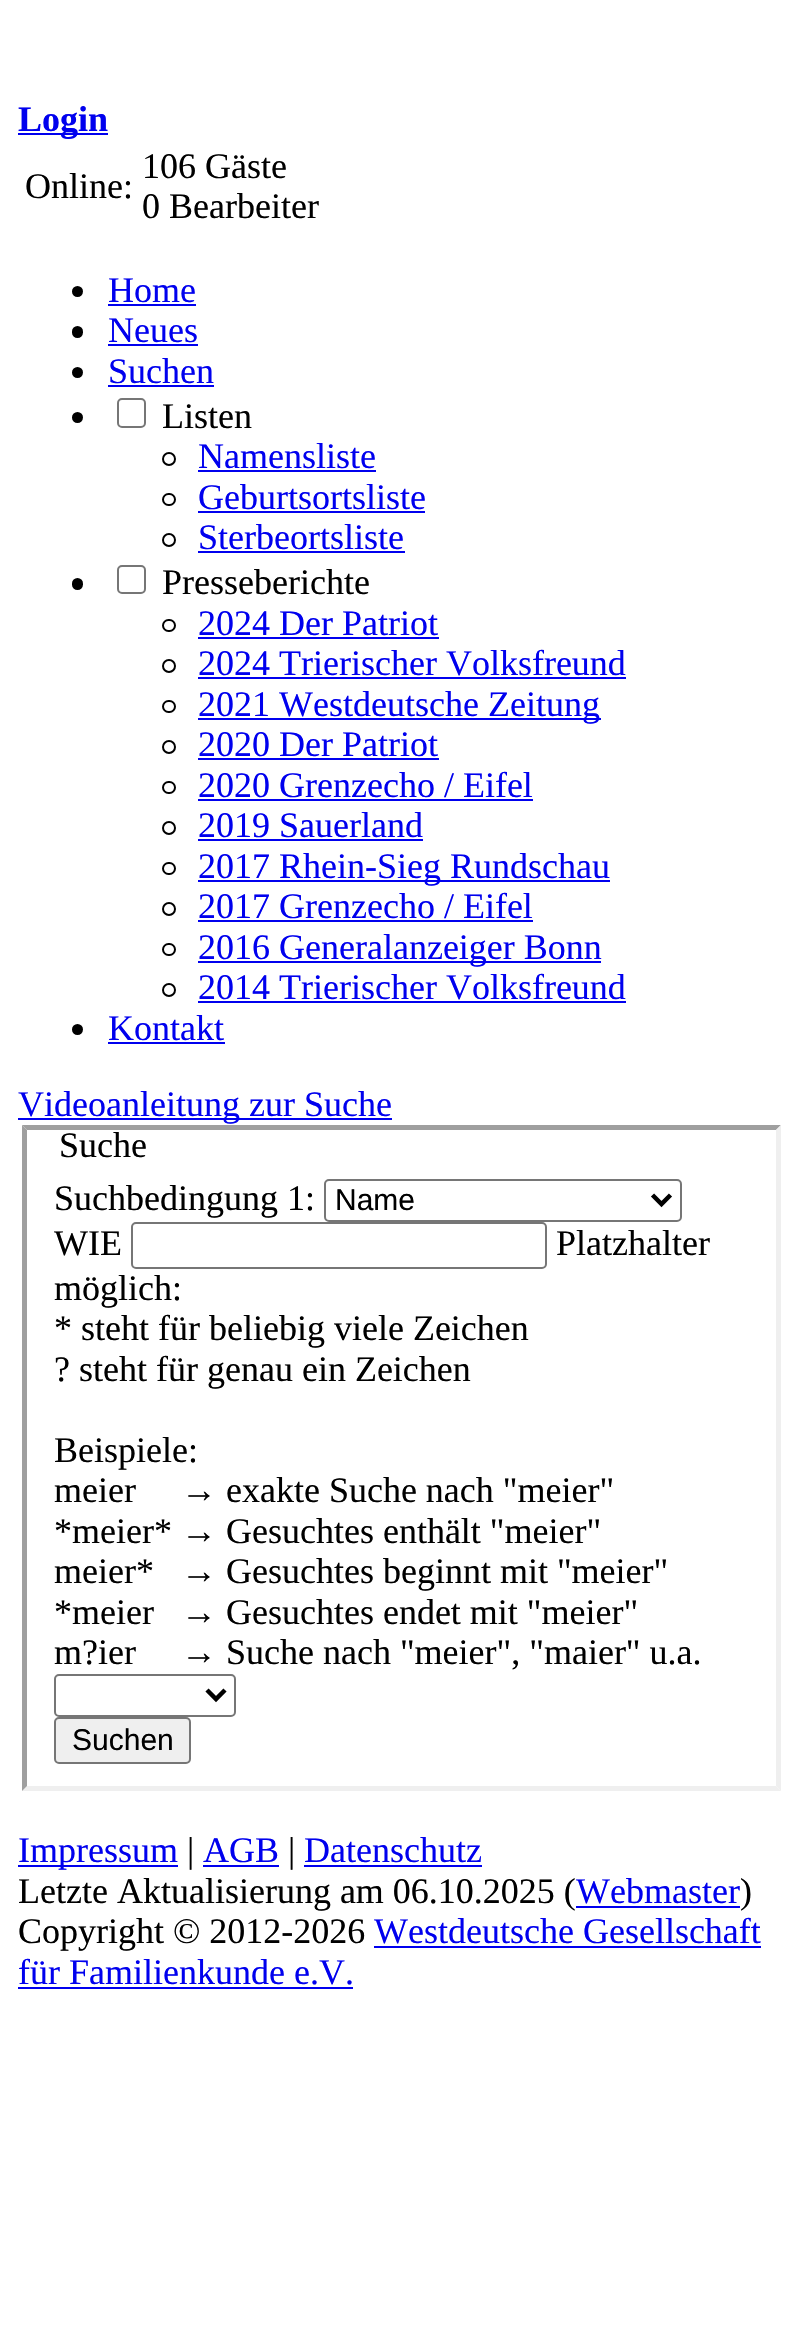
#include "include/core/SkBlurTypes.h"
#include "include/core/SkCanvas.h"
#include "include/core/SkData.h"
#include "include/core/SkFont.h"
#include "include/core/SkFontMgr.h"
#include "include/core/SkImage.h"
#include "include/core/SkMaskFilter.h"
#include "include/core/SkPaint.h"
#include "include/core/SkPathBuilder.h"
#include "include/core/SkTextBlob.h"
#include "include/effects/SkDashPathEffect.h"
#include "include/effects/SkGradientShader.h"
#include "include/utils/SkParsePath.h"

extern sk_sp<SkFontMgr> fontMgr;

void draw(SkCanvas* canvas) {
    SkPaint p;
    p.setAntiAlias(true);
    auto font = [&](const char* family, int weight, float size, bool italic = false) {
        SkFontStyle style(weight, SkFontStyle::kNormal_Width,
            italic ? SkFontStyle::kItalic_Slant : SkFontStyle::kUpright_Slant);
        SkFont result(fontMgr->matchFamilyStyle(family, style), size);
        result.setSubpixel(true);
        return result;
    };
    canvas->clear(0xFFFFFFFF);
    p.setColor(0xFF0000EE);
    canvas->drawRect(SkRect::MakeLTRB(18, 133, 108, 135), p);
    auto font1 = font("Liberation Serif", 700, 36);
    canvas->drawString("Login", 18, 131, font1, p);
    auto font2 = font("Liberation Serif", 400, 36);
    p.setColor(0xFF000000);
    {
        const struct { const char* s; float x, y; } items[] = {
            {"Online:", 25, 198},
            {"106 Gäste", 142, 178},
            {"0 Bearbeiter", 142, 218},
        };
        for (auto [s, x, y] : items) {
            canvas->drawString(s, x, y, font2, p);
        }
    }
    canvas->drawCircle(77.5f, 291.5f, 5.5f, p);
    p.setColor(0xFF0000EE);
    canvas->drawString("Home", 108, 302, font2, p);
    canvas->drawRect(SkRect::MakeLTRB(108, 304, 196, 306), p);
    p.setColor(0xFF000000);
    canvas->drawRoundRect(SkRect::MakeLTRB(72, 326, 83, 338), 5.5f, 5.5f, p);
    p.setColor(0xFF0000EE);
    canvas->drawString("Neues", 108, 342, font2, p);
    canvas->drawRect(SkRect::MakeLTRB(108, 344, 198, 346), p);
    p.setColor(0xFF000000);
    canvas->drawCircle(77.5f, 372.5f, 5.5f, p);
    p.setColor(0xFF0000EE);
    canvas->drawString("Suchen", 108, 383, font2, p);
    canvas->drawRect(SkRect::MakeLTRB(108, 385, 214, 387), p);
    p.setColor(0xFF000000);
    canvas->drawCircle(77.5f, 417.5f, 5.5f, p);
    p.setStyle(SkPaint::kStroke_Style);
    p.setStrokeWidth(2);
    p.setColor(0xFF767676);
    canvas->drawRoundRect(SkRect::MakeLTRB(118, 399, 145, 427), 4, 4, p);
    p.setStyle(SkPaint::kFill_Style);
    p.setColor(0xFF000000);
    canvas->drawString("Listen", 162, 428, font2, p);
    p.setStyle(SkPaint::kStroke_Style);
    canvas->drawCircle(169, 459, 6, p);
    p.setStyle(SkPaint::kFill_Style);
    p.setColor(0xFF0000EE);
    canvas->drawString("Namensliste", 198, 468, font2, p);
    canvas->drawRect(SkRect::MakeLTRB(198, 470, 376, 472), p);
    p.setStyle(SkPaint::kStroke_Style);
    p.setColor(0xFF000000);
    canvas->drawRoundRect(SkRect::MakeLTRB(163, 494, 175, 505), 5.5f, 5.5f, p);
    p.setStyle(SkPaint::kFill_Style);
    p.setColor(0xFF0000EE);
    canvas->drawString("Geburtsortsliste", 198, 509, font2, p);
    canvas->drawRect(SkRect::MakeLTRB(198, 511, 425, 513), p);
    p.setStyle(SkPaint::kStroke_Style);
    p.setColor(0xFF000000);
    canvas->drawCircle(169, 540, 6, p);
    p.setStyle(SkPaint::kFill_Style);
    p.setColor(0xFF0000EE);
    canvas->drawString("Sterbeortsliste", 198, 549, font2, p);
    canvas->drawRect(SkRect::MakeLTRB(198, 551, 405, 553), p);
    p.setColor(0xFF000000);
    canvas->drawRoundRect(SkRect::MakeLTRB(72, 578, 83, 590), 5.5f, 5.5f, p);
    p.setStyle(SkPaint::kStroke_Style);
    p.setColor(0xFF767676);
    canvas->drawRoundRect(SkRect::MakeLTRB(118, 566, 145, 593), 4, 4, p);
    p.setStyle(SkPaint::kFill_Style);
    p.setColor(0xFF000000);
    canvas->drawString("Presseberichte", 162, 594, font2, p);
    p.setStyle(SkPaint::kStroke_Style);
    canvas->drawRoundRect(SkRect::MakeLTRB(163, 620, 175, 631), 5.5f, 5.5f, p);
    p.setStyle(SkPaint::kFill_Style);
    p.setColor(0xFF0000EE);
    canvas->drawString("2024 Der Patriot", 198, 635, font2, p);
    canvas->drawRect(SkRect::MakeLTRB(198, 637, 439, 639), p);
    p.setStyle(SkPaint::kStroke_Style);
    p.setColor(0xFF000000);
    canvas->drawCircle(169, 666, 6, p);
    p.setStyle(SkPaint::kFill_Style);
    p.setColor(0xFF0000EE);
    canvas->drawString("2024 Trierischer Volksfreund", 198, 675, font2, p);
    canvas->drawRect(SkRect::MakeLTRB(198, 677, 626, 679), p);
    p.setStyle(SkPaint::kStroke_Style);
    p.setColor(0xFF000000);
    canvas->drawRoundRect(SkRect::MakeLTRB(163, 701, 175, 712), 5.5f, 5.5f, p);
    p.setStyle(SkPaint::kFill_Style);
    p.setColor(0xFF0000EE);
    canvas->drawRect(SkRect::MakeLTRB(198, 718, 601, 720), p);
    canvas->drawString("2021 Westdeutsche Zeitung", 198, 716, font2, p);
    p.setStyle(SkPaint::kStroke_Style);
    p.setColor(0xFF000000);
    canvas->drawCircle(169, 747, 6, p);
    p.setStyle(SkPaint::kFill_Style);
    p.setColor(0xFF0000EE);
    canvas->drawString("2020 Der Patriot", 198, 756, font2, p);
    canvas->drawRect(SkRect::MakeLTRB(198, 758, 439, 760), p);
    p.setStyle(SkPaint::kStroke_Style);
    p.setColor(0xFF000000);
    canvas->drawRoundRect(SkRect::MakeLTRB(163, 782, 175, 793), 5.5f, 5.5f, p);
    p.setStyle(SkPaint::kFill_Style);
    p.setColor(0xFF0000EE);
    canvas->drawString("2020 Grenzecho / Eifel", 198, 797, font2, p);
    canvas->drawRect(SkRect::MakeLTRB(198, 799, 533, 801), p);
    p.setStyle(SkPaint::kStroke_Style);
    p.setColor(0xFF000000);
    canvas->drawCircle(169, 828, 6, p);
    p.setStyle(SkPaint::kFill_Style);
    p.setColor(0xFF0000EE);
    canvas->drawString("2019 Sauerland", 198, 837, font2, p);
    canvas->drawRect(SkRect::MakeLTRB(198, 839, 423, 841), p);
    p.setStyle(SkPaint::kStroke_Style);
    p.setColor(0xFF000000);
    canvas->drawRoundRect(SkRect::MakeLTRB(163, 863, 175, 874), 5.5f, 5.5f, p);
    p.setStyle(SkPaint::kFill_Style);
    p.setColor(0xFF0000EE);
    canvas->drawRect(SkRect::MakeLTRB(198, 880, 610, 882), p);
    canvas->drawString("2017 Rhein-Sieg Rundschau", 198, 878, font2, p);
    p.setStyle(SkPaint::kStroke_Style);
    p.setColor(0xFF000000);
    canvas->drawCircle(169, 909, 6, p);
    p.setStyle(SkPaint::kFill_Style);
    p.setColor(0xFF0000EE);
    canvas->drawString("2017 Grenzecho / Eifel", 198, 918, font2, p);
    canvas->drawRect(SkRect::MakeLTRB(198, 920, 533, 922), p);
    p.setStyle(SkPaint::kStroke_Style);
    p.setColor(0xFF000000);
    canvas->drawRoundRect(SkRect::MakeLTRB(163, 944, 175, 955), 5.5f, 5.5f, p);
    p.setStyle(SkPaint::kFill_Style);
    p.setColor(0xFF0000EE);
    canvas->drawRect(SkRect::MakeLTRB(198, 961, 601, 963), p);
    canvas->drawString("2016 Generalanzeiger Bonn", 198, 959, font2, p);
    p.setStyle(SkPaint::kStroke_Style);
    p.setColor(0xFF000000);
    canvas->drawCircle(169, 990, 6, p);
    p.setStyle(SkPaint::kFill_Style);
    p.setColor(0xFF0000EE);
    canvas->drawString("2014 Trierischer Volksfreund", 198, 999, font2, p);
    canvas->drawRect(SkRect::MakeLTRB(198, 1001, 626, 1003), p);
    p.setColor(0xFF000000);
    canvas->drawCircle(77.5f, 1029.5f, 5.5f, p);
    p.setColor(0xFF0000EE);
    canvas->drawString("Kontakt", 108, 1040, font2, p);
    canvas->drawRect(SkRect::MakeLTRB(108, 1042, 225, 1044), p);
    canvas->drawRect(SkRect::MakeLTRB(18, 1118, 392, 1120), p);
    canvas->drawString("Videoanleitung zur Suche", 18, 1116, font2, p);
    p.setColor(0xFF9F9F9F);
    canvas->drawPath(SkPathBuilder().moveTo(22, 1125).lineTo(781, 1125).lineTo(776, 1130).lineTo(27, 1130).close().detach(), p);
    p.setColor(0xFFEFEFEF);
    canvas->drawPath(SkPathBuilder().moveTo(781, 1125).lineTo(781, 1791).lineTo(776, 1786).lineTo(776, 1130).close().detach(), p);
    canvas->drawPath(SkPathBuilder().moveTo(781, 1791).lineTo(22, 1791).lineTo(27, 1786).lineTo(776, 1786).close().detach(), p);
    p.setColor(0xFF9F9F9F);
    canvas->drawPath(SkPathBuilder().moveTo(22, 1791).lineTo(22, 1125).lineTo(27, 1130).lineTo(27, 1786).close().detach(), p);
    p.setColor(0xFF000000);
    canvas->drawString("Suche", 59, 1157, font2, p);
    canvas->drawString("Suchbedingung 1:", 54, 1210, font2, p);
    p.setStyle(SkPaint::kStroke_Style);
    p.setColor(0xFF767676);
    canvas->drawRoundRect(SkRect::MakeLTRB(325, 1180, 681, 1221), 4, 4, p);
    p.setStrokeWidth(4.5f);
    p.setColor(0xFF000000);
    canvas->drawPath(SkPathBuilder().moveTo(652.5f, 1195).lineTo(661.5f, 1204).lineTo(670.5f, 1195).detach(), p);
    auto font3 = font("Liberation Sans", 400, 30);
    p.setStyle(SkPaint::kFill_Style);
    canvas->drawString("Name", 335, 1210, font3, p);
    p.setStyle(SkPaint::kStroke_Style);
    p.setStrokeWidth(2);
    p.setColor(0xFF767676);
    canvas->drawRoundRect(SkRect::MakeLTRB(132, 1223, 546, 1268), 4, 4, p);
    p.setStyle(SkPaint::kFill_Style);
    p.setColor(0xFF000000);
    {
        const struct { const char* s; float x, y; } items[] = {
            {"Platzhalter", 556, 1255},
            {"möglich:", 54, 1300},
            {"* steht für beliebig viele Zeichen", 54, 1340},
            {"? steht für genau ein Zeichen", 54, 1381},
            {"Beispiele:", 54, 1462},
            {"meier     → exakte Suche nach \"meier\"", 54, 1502},
            {"*meier* → Gesuchtes enthält \"meier\"", 54, 1543},
            {"meier*   → Gesuchtes beginnt mit \"meier\"", 54, 1583},
            {"*meier   → Gesuchtes endet mit \"meier\"", 54, 1624},
            {"m?ier     → Suche nach \"meier\", \"maier\" u.a.", 54, 1664},
            {"WIE", 54, 1255},
        };
        for (auto [s, x, y] : items) {
            canvas->drawString(s, x, y, font2, p);
        }
    }
    p.setStyle(SkPaint::kStroke_Style);
    p.setColor(0xFF767676);
    canvas->drawRoundRect(SkRect::MakeLTRB(55, 1675, 235, 1716), 4, 4, p);
    p.setStrokeWidth(4.5f);
    p.setColor(0xFF000000);
    canvas->drawPath(SkPathBuilder().moveTo(207, 1690).lineTo(216, 1699).lineTo(225, 1690).detach(), p);
    p.setStyle(SkPaint::kFill_Style);
    p.setColor(0xFFEFEFEF);
    canvas->drawRoundRect(SkRect::MakeLTRB(55, 1718, 190, 1763), 4, 4, p);
    p.setStyle(SkPaint::kStroke_Style);
    p.setStrokeWidth(2);
    p.setColor(0xFF767676);
    canvas->drawRoundRect(SkRect::MakeLTRB(55, 1718, 190, 1763), 4, 4, p);
    p.setStyle(SkPaint::kFill_Style);
    p.setColor(0xFF000000);
    canvas->drawString("Suchen", 72, 1750, font3, p);
    p.setColor(0xFF0000EE);
    canvas->drawRect(SkRect::MakeLTRB(18, 1865, 178, 1867), p);
    canvas->drawString("Impressum", 18, 1862, font2, p);
    p.setColor(0xFF000000);
    canvas->drawString("|", 187, 1862, font2, p);
    p.setColor(0xFF0000EE);
    canvas->drawString("AGB", 203, 1862, font2, p);
    canvas->drawRect(SkRect::MakeLTRB(203, 1865, 279, 1867), p);
    p.setColor(0xFF000000);
    canvas->drawString("|", 288, 1862, font2, p);
    p.setColor(0xFF0000EE);
    canvas->drawString("Datenschutz", 304, 1862, font2, p);
    canvas->drawRect(SkRect::MakeLTRB(304, 1865, 482, 1867), p);
    p.setColor(0xFF000000);
    canvas->drawString("Letzte Aktualisierung am 06.10.2025 (", 18, 1903, font2, p);
    p.setColor(0xFF0000EE);
    canvas->drawString("Webmaster", 576, 1903, font2, p);
    canvas->drawRect(SkRect::MakeLTRB(576, 1906, 740, 1908), p);
    p.setColor(0xFF000000);
    canvas->drawString(")", 740, 1903, font2, p);
    canvas->drawString("Copyright © 2012-2026", 18, 1943, font2, p);
    p.setColor(0xFF0000EE);
    canvas->drawString("Westdeutsche Gesellschaft", 374, 1943, font2, p);
    canvas->drawRect(SkRect::MakeLTRB(374, 1946, 761, 1948), p);
    canvas->drawString("für Familienkunde e.V.", 18, 1984, font2, p);
    canvas->drawRect(SkRect::MakeLTRB(18, 1987, 353, 1989), p);
}
